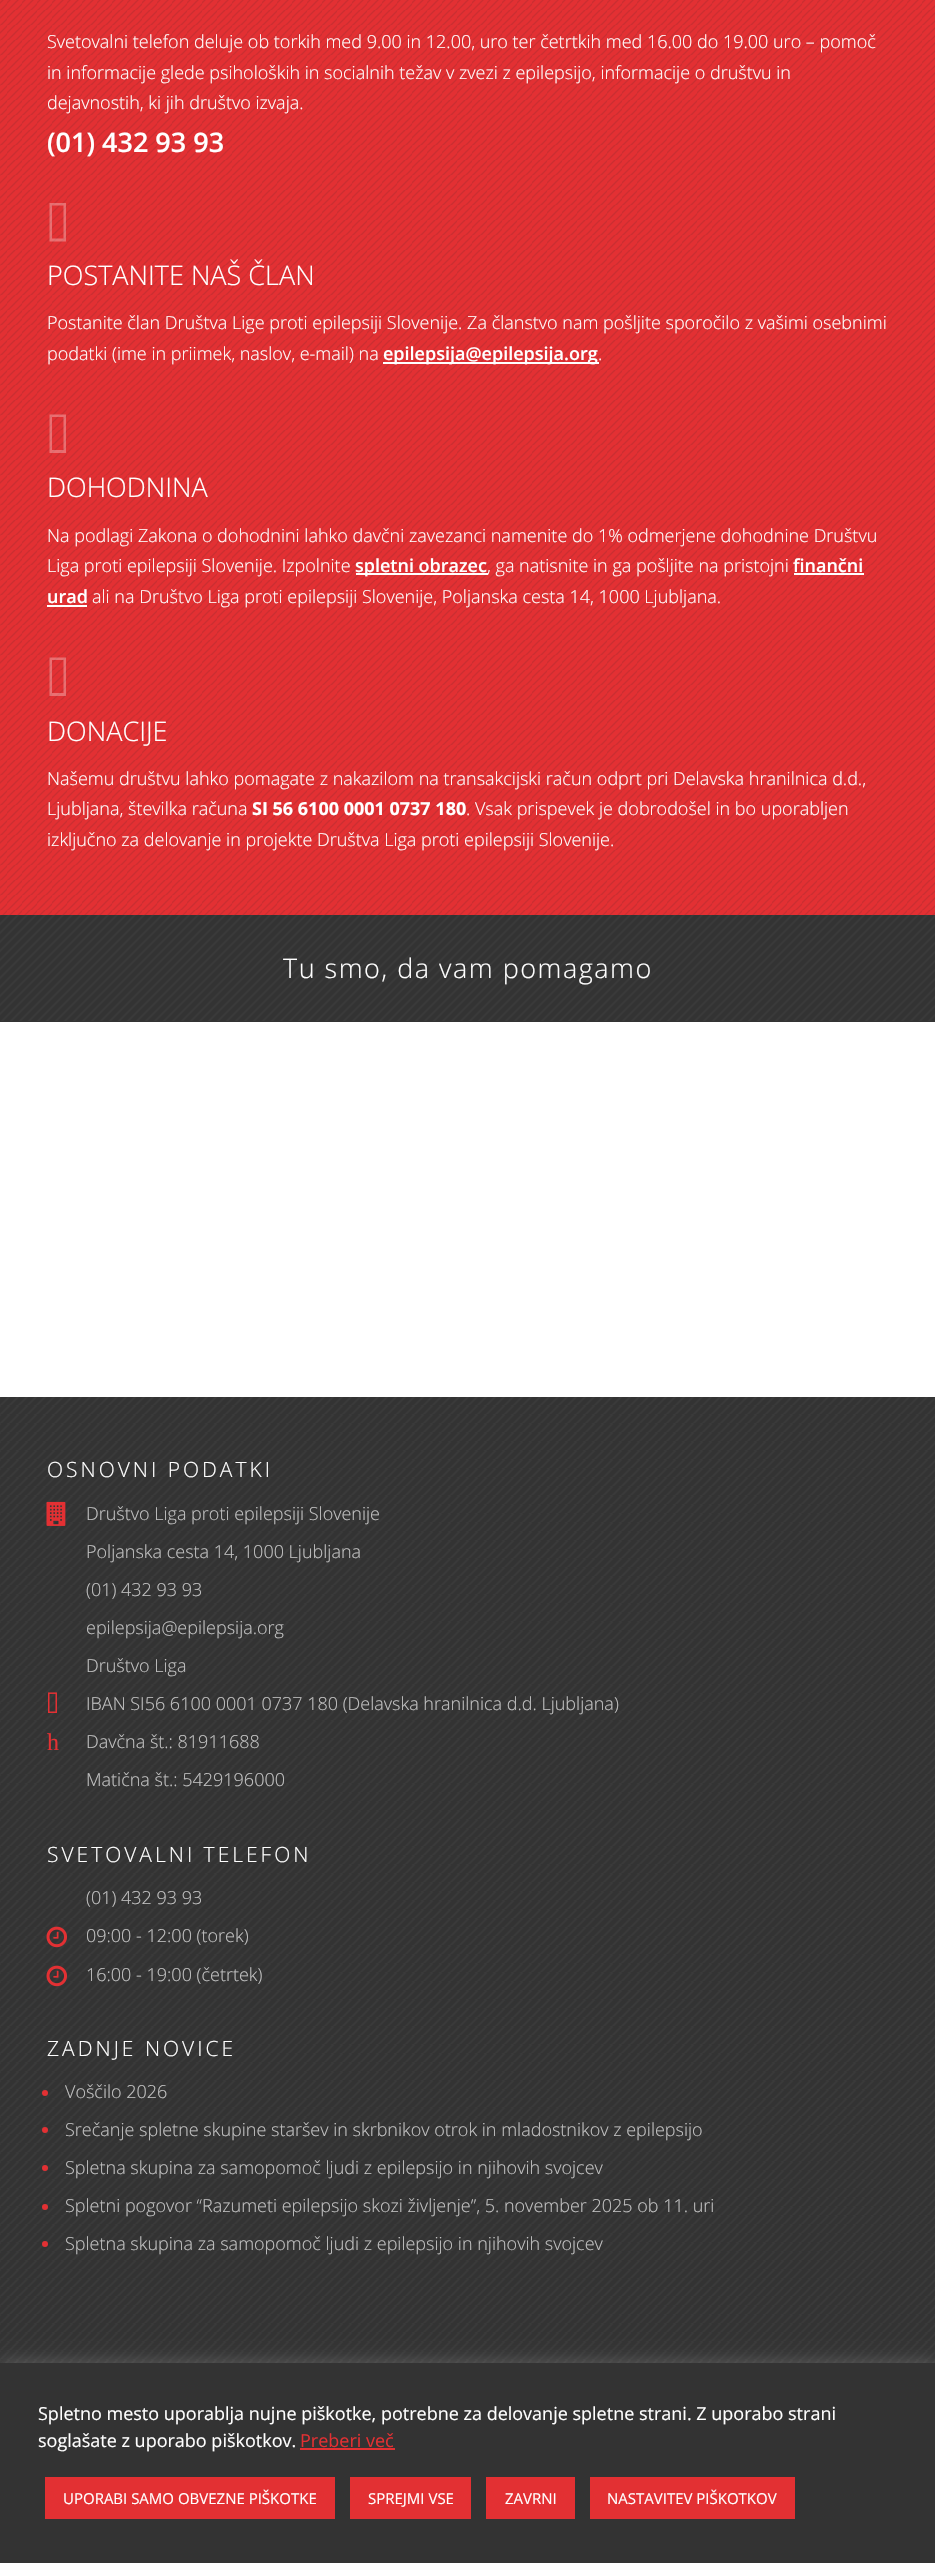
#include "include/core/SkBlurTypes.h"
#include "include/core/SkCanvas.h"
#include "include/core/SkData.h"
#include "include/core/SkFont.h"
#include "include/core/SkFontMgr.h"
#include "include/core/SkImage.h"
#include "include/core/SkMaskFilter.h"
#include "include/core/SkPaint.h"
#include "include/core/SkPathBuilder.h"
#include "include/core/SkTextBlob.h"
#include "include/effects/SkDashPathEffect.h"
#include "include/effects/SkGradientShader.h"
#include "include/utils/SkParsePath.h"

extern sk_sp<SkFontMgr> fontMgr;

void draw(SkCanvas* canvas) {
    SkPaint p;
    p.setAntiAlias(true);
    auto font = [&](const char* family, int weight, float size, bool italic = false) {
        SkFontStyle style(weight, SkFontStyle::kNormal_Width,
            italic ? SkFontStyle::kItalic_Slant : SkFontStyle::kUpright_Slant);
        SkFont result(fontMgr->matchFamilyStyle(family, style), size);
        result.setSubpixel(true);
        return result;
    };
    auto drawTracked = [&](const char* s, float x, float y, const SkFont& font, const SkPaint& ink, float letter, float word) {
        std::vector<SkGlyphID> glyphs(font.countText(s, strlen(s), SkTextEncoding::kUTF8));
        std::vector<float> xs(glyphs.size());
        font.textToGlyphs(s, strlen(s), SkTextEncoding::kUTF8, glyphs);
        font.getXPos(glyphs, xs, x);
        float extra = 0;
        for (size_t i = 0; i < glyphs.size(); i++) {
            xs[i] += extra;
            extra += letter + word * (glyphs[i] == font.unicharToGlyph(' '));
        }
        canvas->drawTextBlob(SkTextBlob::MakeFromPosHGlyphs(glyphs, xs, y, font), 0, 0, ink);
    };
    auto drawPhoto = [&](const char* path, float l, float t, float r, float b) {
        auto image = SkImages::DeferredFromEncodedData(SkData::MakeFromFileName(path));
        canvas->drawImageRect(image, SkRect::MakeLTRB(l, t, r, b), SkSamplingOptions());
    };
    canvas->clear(0xFFFFFFFF);
    p.setColor(0xFFE33033);
    canvas->drawRect(SkRect::MakeLTRB(0, 0, 935, 915), p);
    drawPhoto("media/1.png", 0, 0, 935, 915);
    auto font1 = font("Open Sans", 300, 18);
    p.setColor(0xFFFFFFFF);
    {
        const struct { const char* s; float x, y; } items[] = {
            {"Svetovalni telefon deluje ob torkih med 9.00 in 12.00, uro ter četrtkih med 16.00 do 19.00 uro – pomoč", 47, 48},
            {"in informacije glede psiholoških in socialnih težav v zvezi z epilepsijo, informacije o društvu in", 47, 79},
            {"dejavnostih, ki jih društvo izvaja.", 47, 109},
        };
        for (auto [s, x, y] : items) {
            canvas->drawString(s, x, y, font1, p);
        }
    }
    auto font2 = font("Open Sans", 600, 27);
    canvas->drawString("(01) 432 93 93", 47, 152, font2, p);
    p.setColor(0x4DFFFFFF);
    canvas->drawPath(SkPathBuilder().moveTo(52, 238.5f).lineTo(52, 205.5f).lineTo(63.5f, 205.5f).lineTo(63.5f, 238.5f).close().moveTo(49.5f, 241.5f).lineTo(66, 241.5f).lineTo(66, 203).lineTo(49.5f, 203).close().detach(), p);
    auto font3 = font("Open Sans", 300, 27);
    p.setColor(0xFFFFFFFF);
    canvas->drawString("POSTANITE NAŠ ČLAN", 47, 285, font3, p);
    canvas->drawString("Postanite član Društva Lige proti epilepsiji Slovenije. Za članstvo nam pošljite sporočilo z vašimi osebnimi", 47, 329, font1, p);
    canvas->drawString("podatki (ime in priimek, naslov, e-mail) na", 47, 360, font1, p);
    canvas->drawRect(SkRect::MakeLTRB(383, 362, 599, 364), p);
    auto font4 = font("Open Sans", 600, 18);
    canvas->drawString("epilepsija@epilepsija.org", 383, 360, font4, p);
    canvas->drawString(".", 598, 360, font1, p);
    p.setColor(0x4DFFFFFF);
    canvas->drawPath(SkPathBuilder().moveTo(52, 450).lineTo(52, 417).lineTo(63.5f, 417).lineTo(63.5f, 450).close().moveTo(49.5f, 453).lineTo(66, 453).lineTo(66, 414.5f).lineTo(49.5f, 414.5f).close().detach(), p);
    p.setColor(0xFFFFFFFF);
    canvas->drawString("DOHODNINA", 47, 497, font3, p);
    canvas->drawString("Na podlagi Zakona o dohodnini lahko davčni zavezanci namenite do 1% odmerjene dohodnine Društvu", 47, 542, font1, p);
    canvas->drawString("Liga proti epilepsiji Slovenije. Izpolnite", 47, 572, font1, p);
    canvas->drawRect(SkRect::MakeLTRB(356, 573, 488, 575), p);
    canvas->drawString("spletni obrazec", 355, 572, font4, p);
    canvas->drawString(", ga natisnite in ga pošljite na pristojni", 487, 572, font1, p);
    canvas->drawString("finančni", 793, 572, font4, p);
    canvas->drawRect(SkRect::MakeLTRB(794, 573, 864, 575), p);
    canvas->drawString("urad", 47, 603, font4, p);
    canvas->drawRect(SkRect::MakeLTRB(47, 605, 87, 607), p);
    canvas->drawString("ali na Društvo Liga proti epilepsiji Slovenije, Poljanska cesta 14, 1000 Ljubljana.", 92, 603, font1, p);
    p.setColor(0x4DFFFFFF);
    canvas->drawPath(SkPathBuilder().moveTo(52, 693).lineTo(52, 660).lineTo(63.5f, 660).lineTo(63.5f, 693).close().moveTo(49.5f, 696).lineTo(66, 696).lineTo(66, 657.5f).lineTo(49.5f, 657.5f).close().detach(), p);
    p.setColor(0xFFFFFFFF);
    canvas->drawString("DONACIJE", 47, 741, font3, p);
    canvas->drawString("Našemu društvu lahko pomagate z nakazilom na transakcijski račun odprt pri Delavska hranilnica d.d.,", 47, 785, font1, p);
    canvas->drawString("Ljubljana, številka računa", 47, 815, font1, p);
    auto font5 = font("Open Sans", 700, 18);
    canvas->drawString("SI 56 6100 0001 0737 180", 252, 815, font5, p);
    canvas->drawString(". Vsak prispevek je dobrodošel in bo uporabljen", 466, 815, font1, p);
    canvas->drawString("izključno za delovanje in projekte Društva Liga proti epilepsiji Slovenije.", 47, 846, font1, p);
    p.setColor(0xFF333333);
    canvas->drawRect(SkRect::MakeLTRB(0, 915, 935, 1022), p);
    drawPhoto("media/2.png", 0, 915, 935, 1021);
    p.setColor(0xFFFFFFFF);
    drawTracked("Tu smo, da vam pomagamo", 283, 978, font3, p, 1.5f, 0);
    p.setColor(0xFF333333);
    canvas->drawRect(SkRect::MakeLTRB(0, 1397, 935, 2363), p);
    drawPhoto("media/3.png", 0, 1397, 935, 2363);
    auto font6 = font("Open Sans", 300, 21);
    p.setColor(0xFFFFFFFF);
    drawTracked("OSNOVNI PODATKI", 47, 1477, font6, p, 3, 0);
    drawPhoto("media/4.png", 46, 1501, 66, 1526);
    p.setColor(0xFFC2C2C2);
    {
        const struct { const char* s; float x, y; } items[] = {
            {"Društvo Liga proti epilepsiji Slovenije", 86, 1520},
            {"Poljanska cesta 14, 1000 Ljubljana", 86, 1558},
            {"(01) 432 93 93", 86, 1596},
            {"epilepsija@epilepsija.org", 86, 1634},
            {"Društvo Liga", 86, 1672},
        };
        for (auto [s, x, y] : items) {
            canvas->drawString(s, x, y, font1, p);
        }
    }
    drawPhoto("media/5.png", 48, 1692, 57, 1713);
    canvas->drawString("IBAN SI56 6100 0001 0737 180 (Delavska hranilnica d.d. Ljubljana)", 86, 1710, font1, p);
    auto font7 = font("Liberation Serif", 400, 24);
    p.setColor(0xFFE33033);
    canvas->drawString("h", 47, 1750, font7, p);
    p.setColor(0xFFC2C2C2);
    canvas->drawString("Davčna št.: 81911688", 86, 1748, font1, p);
    canvas->drawString("Matična št.: 5429196000", 86, 1786, font1, p);
    p.setColor(0xFFFFFFFF);
    drawTracked("SVETOVALNI TELEFON", 47, 1862, font6, p, 3, 0);
    p.setColor(0xFFC2C2C2);
    canvas->drawString("(01) 432 93 93", 86, 1904, font1, p);
    drawPhoto("media/6.png", 46, 1926, 68, 1948);
    canvas->drawString("09:00 - 12:00 (torek)", 86, 1942, font1, p);
    drawPhoto("media/7.png", 46, 1965, 68, 1987);
    canvas->drawString("16:00 - 19:00 (četrtek)", 86, 1981, font1, p);
    p.setColor(0xFFFFFFFF);
    drawTracked("ZADNJE NOVICE", 47, 2056, font6, p, 3, 0);
    p.setColor(0xFFE33033);
    canvas->drawCircle(45, 2093, 3, p);
    p.setColor(0xFFC2C2C2);
    canvas->drawString("Voščilo 2026", 65, 2098, font1, p);
    p.setColor(0xFFE33033);
    canvas->drawCircle(45, 2130, 3, p);
    p.setColor(0xFFC2C2C2);
    canvas->drawString("Srečanje spletne skupine staršev in skrbnikov otrok in mladostnikov z epilepsijo", 65, 2136, font1, p);
    p.setColor(0xFFE33033);
    canvas->drawCircle(45, 2168, 3, p);
    p.setColor(0xFFC2C2C2);
    canvas->drawString("Spletna skupina za samopomoč ljudi z epilepsijo in njihovih svojcev", 65, 2174, font1, p);
    p.setColor(0xFFE33033);
    canvas->drawCircle(45, 2207, 3, p);
    p.setColor(0xFFC2C2C2);
    canvas->drawString("Spletni pogovor “Razumeti epilepsijo skozi življenje”, 5. november 2025 ob 11. uri", 65, 2212, font1, p);
    p.setColor(0xFFE33033);
    canvas->drawCircle(45, 2244, 3, p);
    p.setColor(0xFFC2C2C2);
    canvas->drawString("Spletna skupina za samopomoč ljudi z epilepsijo in njihovih svojcev", 65, 2250, font1, p);
    p.setColor(0x4DACABAB);
    p.setMaskFilter(SkMaskFilter::MakeBlur(kNormal_SkBlurStyle, 7.5f));
    canvas->drawRect(SkRect::MakeLTRB(0, 2361, 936, 2562), p);
    p.setMaskFilter(nullptr);
    p.setColor(0xFF333333);
    canvas->drawRect(SkRect::MakeLTRB(0, 2363, 935, 2563), p);
    auto font8 = font("Open Sans", 400, 18);
    p.setColor(0xFFFFFFFF);
    canvas->drawString("Spletno mesto uporablja nujne piškotke, potrebne za delovanje spletne strani. Z uporabo strani", 38, 2420, font8, p);
    canvas->drawString("soglašate z uporabo piškotkov.", 38, 2447, font8, p);
    p.setColor(0xFFE33033);
    canvas->drawString("Preberi več", 300, 2447, font8, p);
    canvas->drawRect(SkRect::MakeLTRB(300, 2448, 395, 2450), p);
    canvas->drawRect(SkRect::MakeLTRB(45, 2477, 335, 2519), p);
    auto font9 = font("Open Sans", 400, 15);
    p.setColor(0xFFFFFFFF);
    canvas->drawString("UPORABI SAMO OBVEZNE PIŠKOTKE", 63, 2504, font9, p);
    p.setColor(0xFFE33033);
    canvas->drawRect(SkRect::MakeLTRB(350, 2477, 471, 2519), p);
    p.setColor(0xFFFFFFFF);
    canvas->drawString("SPREJMI VSE", 368, 2504, font9, p);
    p.setColor(0xFFE33033);
    canvas->drawRect(SkRect::MakeLTRB(486, 2477, 575, 2519), p);
    p.setColor(0xFFFFFFFF);
    canvas->drawString("ZAVRNI", 505, 2504, font9, p);
    p.setColor(0xFFE33033);
    canvas->drawRect(SkRect::MakeLTRB(590, 2477, 795, 2519), p);
    p.setColor(0xFFFFFFFF);
    canvas->drawString("NASTAVITEV PIŠKOTKOV", 607, 2504, font9, p);
}
